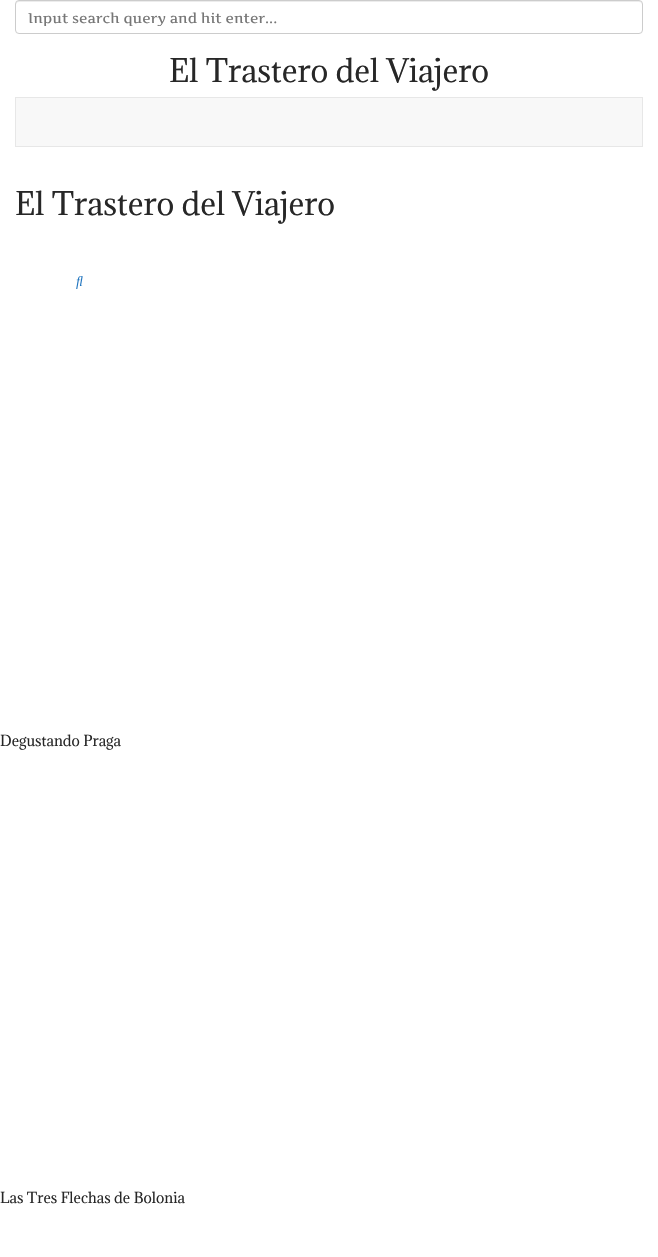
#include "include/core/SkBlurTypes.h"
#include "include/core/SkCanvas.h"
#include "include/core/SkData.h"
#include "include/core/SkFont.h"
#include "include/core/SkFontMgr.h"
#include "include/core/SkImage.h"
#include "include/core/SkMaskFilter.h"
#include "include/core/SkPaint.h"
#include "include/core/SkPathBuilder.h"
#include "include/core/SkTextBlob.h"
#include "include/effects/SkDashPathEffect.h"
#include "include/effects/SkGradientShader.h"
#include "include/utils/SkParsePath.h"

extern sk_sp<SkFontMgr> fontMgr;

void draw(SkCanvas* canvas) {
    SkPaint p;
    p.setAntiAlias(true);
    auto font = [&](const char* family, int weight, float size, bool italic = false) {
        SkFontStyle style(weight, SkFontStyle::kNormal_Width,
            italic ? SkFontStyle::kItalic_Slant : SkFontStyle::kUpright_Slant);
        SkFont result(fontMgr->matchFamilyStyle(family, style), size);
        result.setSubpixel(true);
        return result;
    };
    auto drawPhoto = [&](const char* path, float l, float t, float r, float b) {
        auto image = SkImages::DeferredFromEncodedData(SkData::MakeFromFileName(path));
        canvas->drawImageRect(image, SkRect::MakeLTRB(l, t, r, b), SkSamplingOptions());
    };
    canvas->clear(0xFFFFFFFF);
    p.setColor(0xFFECECEC);
    canvas->drawPath(SkPathBuilder().moveTo(19, 2).lineTo(639, 2).cubicTo(641, 2, 642, 3, 642, 5).lineTo(642, 4).cubicTo(642, 2, 641, 1, 639, 1).lineTo(19, 1).cubicTo(17, 1, 16, 2, 16, 4).lineTo(16, 5).cubicTo(16, 3, 17, 2, 19, 2).close().detach(), p);
    p.setStyle(SkPaint::kStroke_Style);
    p.setStrokeWidth(1);
    p.setColor(0xFFCCCCCC);
    canvas->drawRoundRect(SkRect::MakeLTRB(15.5f, 0.5f, 642.5f, 33.5f), 3.5f, 3.5f, p);
    canvas->save();
    canvas->clipRect(SkRect::MakeLTRB(28, 9, 630, 26));
    auto font1 = font("Artifika", 400, 14);
    p.setStyle(SkPaint::kFill_Style);
    p.setColor(0xFF777777);
    canvas->drawString("Input search query and hit enter...", 28, 23, font1, p);
    canvas->restore();
    auto font2 = font("Adamina", 400, 30);
    p.setColor(0xFF272727);
    canvas->drawString("El Trastero del Viajero", 169, 82, font2, p);
    p.setColor(0xFFF8F8F8);
    canvas->drawRect(SkRect::MakeLTRB(15.5f, 97.5f, 642.5f, 146.5f), p);
    p.setStyle(SkPaint::kStroke_Style);
    p.setColor(0xFFE7E7E7);
    canvas->drawRect(SkRect::MakeLTRB(15.5f, 97.5f, 642.5f, 146.5f), p);
    p.setStyle(SkPaint::kFill_Style);
    p.setColor(0xFF272727);
    canvas->drawString("El Trastero del Viajero", 15, 215, font2, p);
    drawPhoto("media/1.png", 76, 276, 83, 289);
    auto font3 = font("Adamina", 400, 14);
    canvas->drawString("Degustando Praga", 0, 746, font3, p);
    canvas->drawString("Las Tres Flechas de Bolonia", 0, 1203, font3, p);
}
